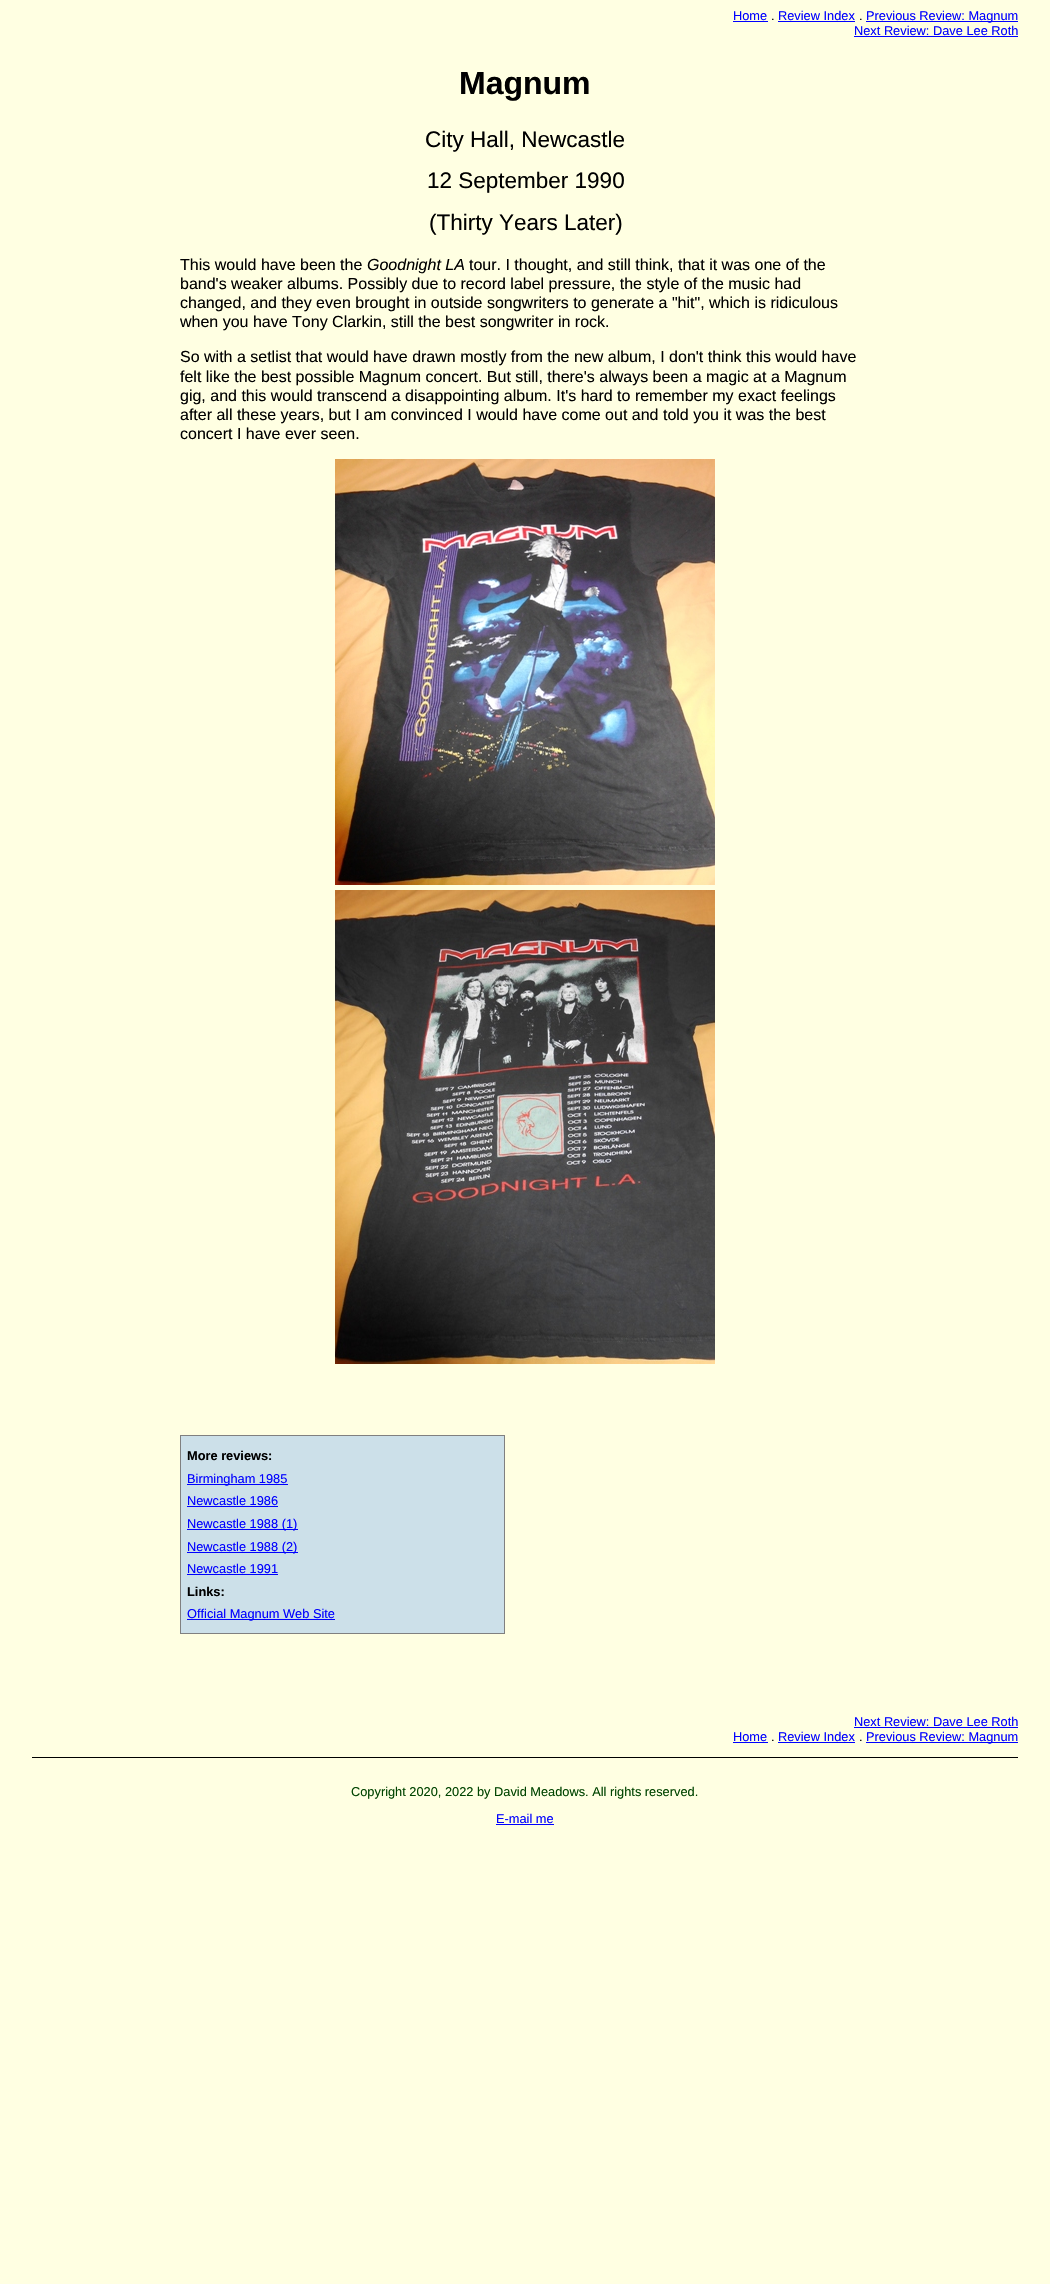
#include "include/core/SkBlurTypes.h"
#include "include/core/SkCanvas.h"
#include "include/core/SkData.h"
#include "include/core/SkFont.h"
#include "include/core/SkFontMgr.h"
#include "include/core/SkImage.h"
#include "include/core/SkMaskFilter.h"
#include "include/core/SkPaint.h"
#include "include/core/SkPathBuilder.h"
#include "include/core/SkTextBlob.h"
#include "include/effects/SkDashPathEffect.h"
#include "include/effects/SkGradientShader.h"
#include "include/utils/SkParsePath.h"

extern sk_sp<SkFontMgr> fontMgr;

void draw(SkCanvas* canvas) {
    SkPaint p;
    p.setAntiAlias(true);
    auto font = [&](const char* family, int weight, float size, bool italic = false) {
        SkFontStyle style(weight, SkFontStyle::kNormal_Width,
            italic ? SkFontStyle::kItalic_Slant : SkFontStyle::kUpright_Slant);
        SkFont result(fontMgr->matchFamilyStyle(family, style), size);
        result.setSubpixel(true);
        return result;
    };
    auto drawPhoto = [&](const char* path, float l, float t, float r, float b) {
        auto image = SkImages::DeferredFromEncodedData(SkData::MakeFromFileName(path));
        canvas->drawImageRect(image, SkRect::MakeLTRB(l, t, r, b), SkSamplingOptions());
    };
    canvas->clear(0xFFFFFFE2);
    auto font1 = font("Liberation Sans", 400, 12.8f);
    p.setColor(0xFF0000FF);
    canvas->drawString("Home", 733, 20, font1, p);
    canvas->drawRect(SkRect::MakeLTRB(733, 21, 768, 22), p);
    p.setColor(0xFF000000);
    canvas->drawString(".", 771, 20, font1, p);
    p.setColor(0xFF0000FF);
    canvas->drawString("Review Index", 778, 20, font1, p);
    canvas->drawRect(SkRect::MakeLTRB(778, 21, 855, 22), p);
    p.setColor(0xFF000000);
    canvas->drawString(".", 859, 20, font1, p);
    p.setColor(0xFF0000FF);
    canvas->drawRect(SkRect::MakeLTRB(866, 21, 1018, 22), p);
    canvas->drawString("Previous Review: Magnum", 866, 20, font1, p);
    canvas->drawString("Next Review: Dave Lee Roth", 854, 35, font1, p);
    canvas->drawRect(SkRect::MakeLTRB(854, 36, 1018, 37), p);
    auto font2 = font("Liberation Sans", 700, 32);
    p.setColor(0xFF000000);
    canvas->drawString("Magnum", 459, 94, font2, p);
    auto font3 = font("Liberation Sans", 400, 22.5f);
    {
        const struct { const char* s; float x, y; } items[] = {
            {"City Hall, Newcastle", 425, 147},
            {"12 September 1990", 427, 188},
            {"(Thirty Years Later)", 429, 230},
        };
        for (auto [s, x, y] : items) {
            canvas->drawString(s, x, y, font3, p);
        }
    }
    auto font4 = font("Liberation Sans", 400, 16);
    canvas->drawString("This would have been the", 180, 270, font4, p);
    auto font5 = font("Liberation Sans", 400, 16, true);
    canvas->drawString("Goodnight LA", 367, 270, font5, p);
    {
        const struct { const char* s; float x, y; } items[] = {
            {"tour. I thought, and still think, that it was one of the", 469, 270},
            {"band's weaker albums. Possibly due to record label pressure, the style of the music had", 180, 289},
            {"changed, and they even brought in outside songwriters to generate a \"hit\", which is ridiculous", 180, 308},
            {"when you have Tony Clarkin, still the best songwriter in rock.", 180, 327},
            {"So with a setlist that would have drawn mostly from the new album, I don't think this would have", 180, 362},
            {"felt like the best possible Magnum concert. But still, there's always been a magic at a Magnum", 180, 382},
            {"gig, and this would transcend a disappointing album. It's hard to remember my exact feelings", 180, 401},
            {"after all these years, but I am convinced I would have come out and told you it was the best", 180, 420},
            {"concert I have ever seen.", 180, 439},
        };
        for (auto [s, x, y] : items) {
            canvas->drawString(s, x, y, font4, p);
        }
    }
    drawPhoto("media/1.png", 335, 459, 715, 885);
    drawPhoto("media/2.png", 335, 890, 715, 1364);
    p.setColor(0xFFCCE0E9);
    canvas->drawRect(SkRect::MakeLTRB(180.5f, 1435.5f, 504.5f, 1633.5f), p);
    p.setStyle(SkPaint::kStroke_Style);
    p.setStrokeWidth(1);
    p.setColor(0xFF808080);
    canvas->drawRect(SkRect::MakeLTRB(180.5f, 1435.5f, 504.5f, 1633.5f), p);
    auto font6 = font("Liberation Sans", 700, 12.8f);
    p.setStyle(SkPaint::kFill_Style);
    p.setColor(0xFF000000);
    canvas->drawString("More reviews:", 187, 1460, font6, p);
    p.setColor(0xFF0000FF);
    canvas->drawRect(SkRect::MakeLTRB(187, 1484, 288, 1485), p);
    canvas->drawString("Birmingham 1985", 187, 1483, font1, p);
    canvas->drawString("Newcastle 1986", 187, 1505, font1, p);
    canvas->drawRect(SkRect::MakeLTRB(187, 1506, 278, 1507), p);
    canvas->drawRect(SkRect::MakeLTRB(187, 1529, 298, 1530), p);
    canvas->drawString("Newcastle 1988 (1)", 187, 1528, font1, p);
    canvas->drawRect(SkRect::MakeLTRB(187, 1552, 298, 1553), p);
    canvas->drawString("Newcastle 1988 (2)", 187, 1551, font1, p);
    canvas->drawString("Newcastle 1991", 187, 1573, font1, p);
    canvas->drawRect(SkRect::MakeLTRB(187, 1574, 278, 1575), p);
    p.setColor(0xFF000000);
    canvas->drawString("Links:", 187, 1596, font6, p);
    p.setColor(0xFF0000FF);
    canvas->drawRect(SkRect::MakeLTRB(187, 1619, 335, 1620), p);
    canvas->drawString("Official Magnum Web Site", 187, 1618, font1, p);
    canvas->drawString("Next Review: Dave Lee Roth", 854, 1726, font1, p);
    canvas->drawRect(SkRect::MakeLTRB(854, 1727, 1018, 1728), p);
    canvas->drawString("Home", 733, 1741, font1, p);
    canvas->drawRect(SkRect::MakeLTRB(733, 1742, 768, 1743), p);
    p.setColor(0xFF000000);
    canvas->drawString(".", 771, 1741, font1, p);
    p.setColor(0xFF0000FF);
    canvas->drawString("Review Index", 778, 1741, font1, p);
    canvas->drawRect(SkRect::MakeLTRB(778, 1742, 855, 1743), p);
    p.setColor(0xFF000000);
    canvas->drawString(".", 859, 1741, font1, p);
    p.setColor(0xFF0000FF);
    canvas->drawRect(SkRect::MakeLTRB(866, 1742, 1018, 1743), p);
    canvas->drawString("Previous Review: Magnum", 866, 1741, font1, p);
    p.setColor(0xFF000000);
    canvas->drawRect(SkRect::MakeLTRB(32, 1757, 1018, 1758), p);
    p.setColor(0xFF004400);
    canvas->drawString("Copyright 2020, 2022 by David Meadows. All rights reserved.", 351, 1796, font1, p);
    p.setColor(0xFF0000FF);
    canvas->drawString("E-mail me", 496, 1823, font1, p);
    canvas->drawRect(SkRect::MakeLTRB(496, 1824, 554, 1825), p);
}
